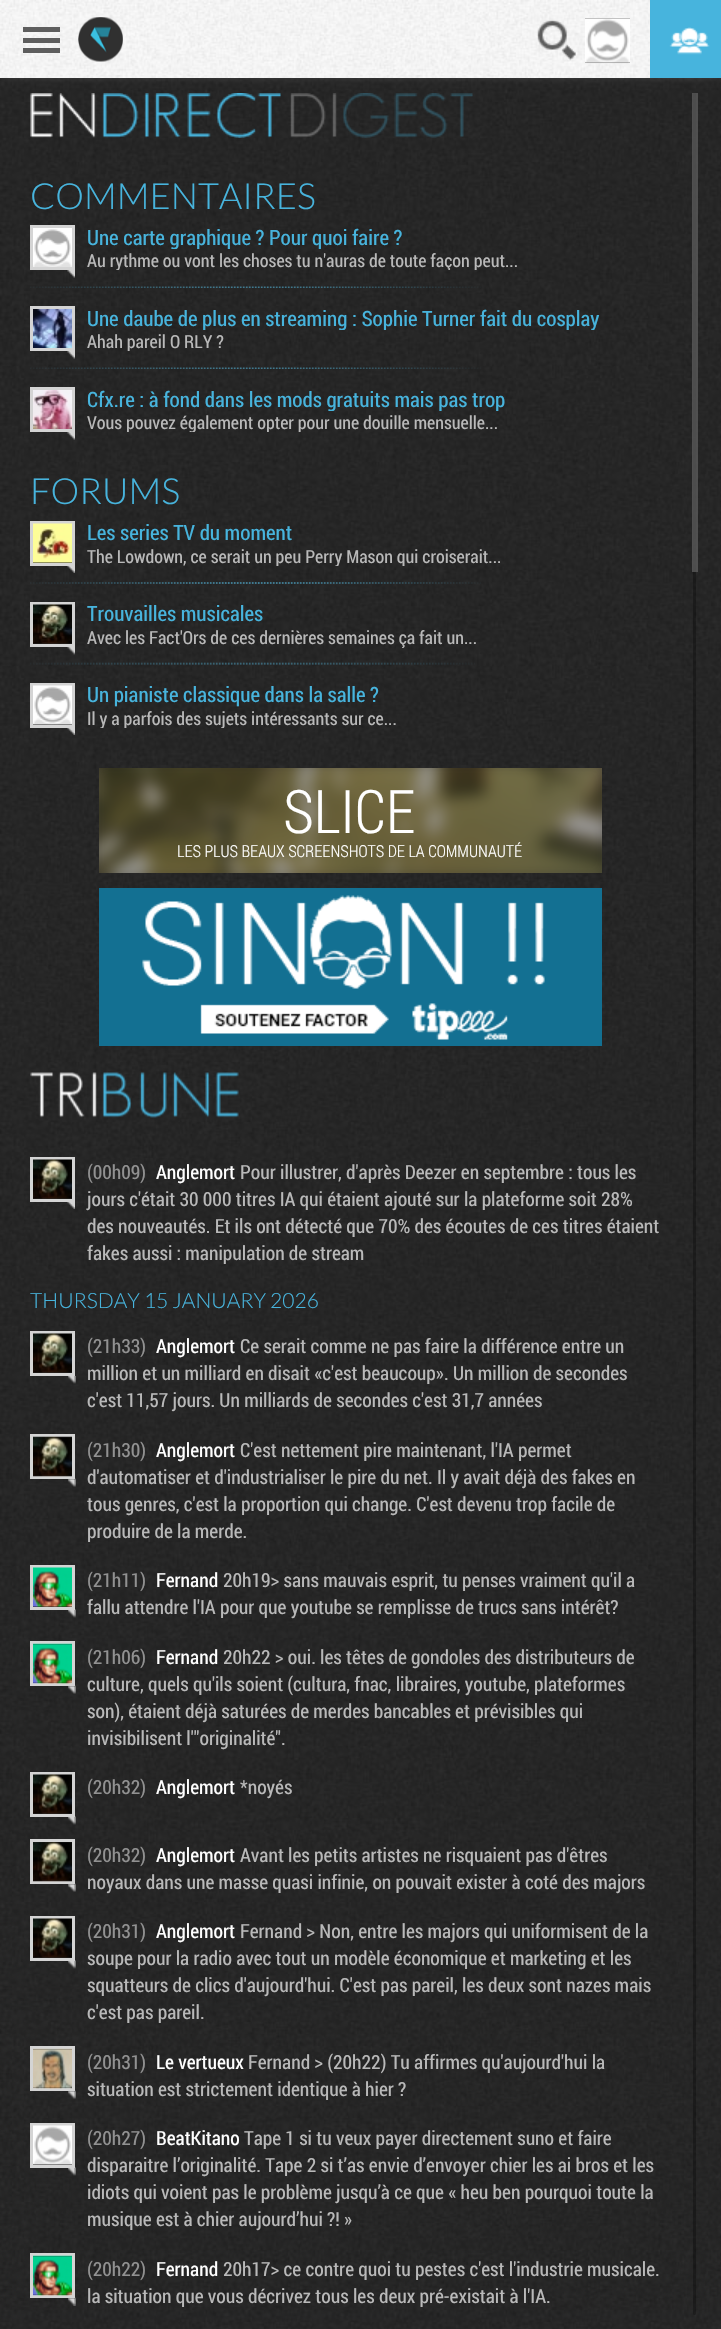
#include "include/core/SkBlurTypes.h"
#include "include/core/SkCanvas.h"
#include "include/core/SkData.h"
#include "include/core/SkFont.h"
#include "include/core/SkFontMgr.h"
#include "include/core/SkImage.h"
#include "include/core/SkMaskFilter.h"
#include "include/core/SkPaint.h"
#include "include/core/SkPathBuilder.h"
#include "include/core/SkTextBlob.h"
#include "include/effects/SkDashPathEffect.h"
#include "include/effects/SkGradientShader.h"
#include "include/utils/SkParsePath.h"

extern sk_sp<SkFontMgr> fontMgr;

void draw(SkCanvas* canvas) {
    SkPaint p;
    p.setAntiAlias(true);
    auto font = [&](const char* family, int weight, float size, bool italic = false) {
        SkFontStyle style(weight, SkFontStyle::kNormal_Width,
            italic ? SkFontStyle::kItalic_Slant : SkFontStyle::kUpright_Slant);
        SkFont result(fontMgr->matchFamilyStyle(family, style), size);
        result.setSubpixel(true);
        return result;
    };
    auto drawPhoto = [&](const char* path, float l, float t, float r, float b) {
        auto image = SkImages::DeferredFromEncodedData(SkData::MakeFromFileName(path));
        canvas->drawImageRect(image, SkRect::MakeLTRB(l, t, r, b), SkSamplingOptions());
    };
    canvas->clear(0xFFFFFFFF);
    drawPhoto("media/6.png", 0, 78, 721, 2329);
    p.setColor(0xFF5E5E5E);
    p.setMaskFilter(SkMaskFilter::MakeBlur(kNormal_SkBlurStyle, 4.5f));
    canvas->drawRect(SkRect::MakeLTRB(3, 3, 719, 75), p);
    p.setMaskFilter(nullptr);
    drawPhoto("media/1.png", 0, 0, 650, 78);
    {
        const struct { float l, t, r, b; SkColor color; } items[] = {
            {23, 27, 60, 32, 0xFF5E5E5E},
            {23, 38, 60, 43, 0xFF5E5E5E},
            {23, 48, 60, 53, 0xFF5E5E5E},
        };
        for (auto [l, t, r, b, color] : items) {
            p.setColor(color);
            canvas->drawRect(SkRect::MakeLTRB(l, t, r, b), p);
        }
    }
    drawPhoto("media/2.png", 78, 17, 123, 62);
    drawPhoto("media/3.png", 537, 20, 576, 61);
    canvas->drawRect(SkRect::MakeLTRB(585, 18, 630, 63), p);
    drawPhoto("media/4.png", 585, 18, 630, 64);
    p.setColor(0xFF47B4DD);
    canvas->drawRect(SkRect::MakeLTRB(650, 0, 721, 78), p);
    drawPhoto("media/5.png", 669, 27, 710, 55);
    drawPhoto("media/7.png", 30, 93, 281, 138);
    drawPhoto("media/8.png", 290, 93, 473, 138);
    auto font1 = font("Lato", 300, 36);
    canvas->drawString("COMMENTAIRES", 30, 209, font1, p);
    p.setStyle(SkPaint::kStroke_Style);
    p.setStrokeWidth(3);
    p.setColor(0xFFD4D4D4);
    canvas->drawRect(SkRect::MakeLTRB(31.5f, 226.5f, 73.5f, 268.5f), p);
    drawPhoto("media/9.png", 33, 228, 72, 267);
    drawPhoto("media/10.png", 67, 270, 75, 278);
    canvas->save();
    canvas->clipRect(SkRect::MakeLTRB(87, 225, 669, 249));
    auto font2 = font("Roboto Condensed", 400, 21);
    p.setStyle(SkPaint::kFill_Style);
    p.setColor(0xFF47B4DD);
    canvas->drawString("Une carte graphique ? Pour quoi faire ?", 87, 245, font2, p);
    canvas->restore();
    canvas->save();
    canvas->clipRect(SkRect::MakeLTRB(87, 249, 669, 270));
    auto font3 = font("Roboto Condensed", 400, 18);
    p.setColor(0xFFB9B9B9);
    canvas->drawString("Au rythme ou vont les choses tu n'auras de toute façon peut...", 87, 267, font3, p);
    canvas->restore();
    drawPhoto("media/11.png", 30, 286, 481, 288);
    p.setStyle(SkPaint::kStroke_Style);
    p.setColor(0xFFD4D4D4);
    canvas->drawRect(SkRect::MakeLTRB(31.5f, 307.5f, 73.5f, 349.5f), p);
    drawPhoto("media/12.png", 33, 309, 72, 348);
    drawPhoto("media/13.png", 67, 351, 75, 359);
    canvas->save();
    canvas->clipRect(SkRect::MakeLTRB(87, 306, 669, 330));
    p.setStyle(SkPaint::kFill_Style);
    p.setColor(0xFF47B4DD);
    canvas->drawString("Une daube de plus en streaming : Sophie Turner fait du cosplay", 87, 326, font2, p);
    canvas->restore();
    canvas->save();
    canvas->clipRect(SkRect::MakeLTRB(87, 330, 669, 351));
    p.setColor(0xFFB9B9B9);
    canvas->drawString("Ahah pareil", 87, 348, font3, p);
    canvas->restore();
    canvas->drawString("O RLY ?", 170, 348, font3, p);
    drawPhoto("media/14.png", 30, 367, 481, 369);
    p.setStyle(SkPaint::kStroke_Style);
    p.setColor(0xFFD4D4D4);
    canvas->drawRect(SkRect::MakeLTRB(31.5f, 388.5f, 73.5f, 430.5f), p);
    drawPhoto("media/15.png", 33, 390, 72, 429);
    drawPhoto("media/16.png", 67, 432, 75, 440);
    canvas->save();
    canvas->clipRect(SkRect::MakeLTRB(87, 387, 669, 411));
    p.setStyle(SkPaint::kFill_Style);
    p.setColor(0xFF47B4DD);
    canvas->drawString("Cfx.re : à fond dans les mods gratuits mais pas trop", 87, 407, font2, p);
    canvas->restore();
    canvas->save();
    canvas->clipRect(SkRect::MakeLTRB(87, 411, 669, 432));
    p.setColor(0xFFB9B9B9);
    canvas->drawString("Vous pouvez également opter pour une douille mensuelle...", 87, 429, font3, p);
    canvas->restore();
    p.setColor(0xFF47B4DD);
    canvas->drawString("FORUMS", 30, 504, font1, p);
    p.setStyle(SkPaint::kStroke_Style);
    p.setColor(0xFFD4D4D4);
    canvas->drawRect(SkRect::MakeLTRB(31.5f, 522.5f, 73.5f, 564.5f), p);
    drawPhoto("media/17.png", 33, 523, 72, 563);
    drawPhoto("media/18.png", 67, 566, 75, 573);
    p.setStyle(SkPaint::kFill_Style);
    p.setColor(0xFF47B4DD);
    canvas->drawString("Les series TV du moment", 87, 540, font2, p);
    canvas->save();
    canvas->clipRect(SkRect::MakeLTRB(87, 545, 669, 566));
    p.setColor(0xFFB9B9B9);
    canvas->drawString("The Lowdown, ce serait un peu Perry Mason qui croiserait...", 87, 563, font3, p);
    canvas->restore();
    drawPhoto("media/19.png", 30, 582, 481, 584);
    p.setStyle(SkPaint::kStroke_Style);
    p.setColor(0xFFD4D4D4);
    canvas->drawRect(SkRect::MakeLTRB(31.5f, 603.5f, 73.5f, 645.5f), p);
    drawPhoto("media/20.png", 33, 604, 72, 644);
    drawPhoto("media/21.png", 67, 647, 75, 655);
    p.setStyle(SkPaint::kFill_Style);
    p.setColor(0xFF47B4DD);
    canvas->drawString("Trouvailles musicales", 87, 621, font2, p);
    p.setColor(0xFFB9B9B9);
    canvas->drawString("Avec les Fact'Ors de ces dernières semaines ça fait un...", 87, 644, font3, p);
    drawPhoto("media/22.png", 30, 662, 475, 665);
    p.setStyle(SkPaint::kStroke_Style);
    p.setColor(0xFFD4D4D4);
    canvas->drawRect(SkRect::MakeLTRB(31.5f, 684.5f, 73.5f, 726.5f), p);
    drawPhoto("media/23.png", 33, 685, 72, 725);
    drawPhoto("media/24.png", 67, 728, 75, 735);
    p.setStyle(SkPaint::kFill_Style);
    p.setColor(0xFF47B4DD);
    canvas->drawString("Un pianiste classique dans la salle ?", 87, 702, font2, p);
    canvas->save();
    canvas->clipRect(SkRect::MakeLTRB(87, 707, 669, 728));
    p.setColor(0xFFB9B9B9);
    canvas->drawString("Il y a parfois des sujets intéressants sur ce...", 87, 725, font3, p);
    canvas->restore();
    p.setColor(0xFF262626);
    canvas->drawRect(SkRect::MakeLTRB(99, 768, 602, 873), p);
    drawPhoto("media/25.png", 99, 768, 602, 873);
    auto font4 = font("Roboto Condensed", 300, 60);
    p.setColor(0xFFFFFFFF);
    canvas->drawString("SLICE", 283, 833, font4, p);
    auto font5 = font("Roboto Condensed", 300, 16.5f);
    canvas->drawString("LES PLUS BEAUX SCREENSHOTS DE LA COMMUNAUTÉ", 177, 857, font5, p);
    p.setColor(0xFF137092);
    canvas->drawRect(SkRect::MakeLTRB(99, 888, 602, 1046), p);
    drawPhoto("media/26.png", 142, 895, 545, 1040);
    drawPhoto("media/27.png", 30, 1072, 239, 1118);
    p.setStyle(SkPaint::kStroke_Style);
    p.setColor(0xFFD4D4D4);
    canvas->drawRect(SkRect::MakeLTRB(31.5f, 1158.5f, 73.5f, 1200.5f), p);
    drawPhoto("media/28.png", 33, 1159, 72, 1199);
    drawPhoto("media/29.png", 67, 1202, 75, 1209);
    auto font6 = font("Roboto Condensed", 400, 19.5f);
    p.setStyle(SkPaint::kFill_Style);
    p.setColor(0xFF919191);
    canvas->drawString("(00h09)", 87, 1179, font6, p);
    p.setColor(0xFFFFFFFF);
    canvas->drawString("Anglemort", 156, 1179, font6, p);
    p.setColor(0xFFB9B9B9);
    {
        const struct { const char* s; float x, y; } items[] = {
            {"Pour illustrer, d'après Deezer en septembre : tous les", 240, 1179},
            {"jours c'était 30 000 titres IA qui étaient ajouté sur la plateforme soit 28%", 87, 1206},
            {"des nouveautés. Et ils ont détecté que 70% des écoutes de ces titres étaient", 87, 1233},
            {"fakes aussi : manipulation de stream", 87, 1260},
        };
        for (auto [s, x, y] : items) {
            canvas->drawString(s, x, y, font6, p);
        }
    }
    auto font7 = font("Lato", 300, 21);
    p.setColor(0xFF47B4DD);
    canvas->drawString("THURSDAY 15 JANUARY 2026", 30, 1308, font7, p);
    p.setStyle(SkPaint::kStroke_Style);
    p.setColor(0xFFD4D4D4);
    canvas->drawRect(SkRect::MakeLTRB(31.5f, 1332.5f, 73.5f, 1374.5f), p);
    drawPhoto("media/30.png", 33, 1333, 72, 1373);
    drawPhoto("media/31.png", 68, 1376, 76, 1384);
    p.setStyle(SkPaint::kFill_Style);
    p.setColor(0xFF919191);
    canvas->drawString("(21h33)", 87, 1353, font6, p);
    p.setColor(0xFFFFFFFF);
    canvas->drawString("Anglemort", 156, 1353, font6, p);
    p.setColor(0xFFB9B9B9);
    {
        const struct { const char* s; float x, y; } items[] = {
            {"Ce serait comme ne pas faire la différence entre un", 240, 1353},
            {"million et un milliard en disait «c'est beaucoup». Un million de secondes", 87, 1380},
            {"c'est 11,57 jours. Un milliards de secondes c'est 31,7 années", 87, 1407},
        };
        for (auto [s, x, y] : items) {
            canvas->drawString(s, x, y, font6, p);
        }
    }
    p.setStyle(SkPaint::kStroke_Style);
    p.setColor(0xFFD4D4D4);
    canvas->drawRect(SkRect::MakeLTRB(31.5f, 1435.5f, 73.5f, 1477.5f), p);
    drawPhoto("media/32.png", 33, 1436, 72, 1477);
    drawPhoto("media/33.png", 68, 1478, 76, 1487);
    p.setStyle(SkPaint::kFill_Style);
    p.setColor(0xFF919191);
    canvas->drawString("(21h30)", 87, 1457, font6, p);
    p.setColor(0xFFFFFFFF);
    canvas->drawString("Anglemort", 156, 1457, font6, p);
    p.setColor(0xFFB9B9B9);
    {
        const struct { const char* s; float x, y; } items[] = {
            {"C'est nettement pire maintenant, l'IA permet", 240, 1457},
            {"d'automatiser et d'industrialiser le pire du net. Il y avait déjà des fakes en", 87, 1484},
            {"tous genres, c'est la proportion qui change. C'est devenu trop facile de", 87, 1511},
            {"produire de la merde.", 87, 1538},
        };
        for (auto [s, x, y] : items) {
            canvas->drawString(s, x, y, font6, p);
        }
    }
    p.setStyle(SkPaint::kStroke_Style);
    p.setColor(0xFFD4D4D4);
    canvas->drawRect(SkRect::MakeLTRB(31.5f, 1566.5f, 73.5f, 1608.5f), p);
    drawPhoto("media/34.png", 33, 1567, 72, 1607);
    drawPhoto("media/35.png", 68, 1609, 76, 1618);
    p.setStyle(SkPaint::kFill_Style);
    p.setColor(0xFF919191);
    canvas->drawString("(21h11)", 87, 1587, font6, p);
    p.setColor(0xFFFFFFFF);
    canvas->drawString("Fernand", 156, 1587, font6, p);
    p.setColor(0xFFB9B9B9);
    canvas->drawString("20h19> sans mauvais esprit, tu penses vraiment qu'il a", 223, 1587, font6, p);
    canvas->drawString("fallu attendre l'IA pour que youtube se remplisse de trucs sans intérêt?", 87, 1614, font6, p);
    p.setStyle(SkPaint::kStroke_Style);
    p.setColor(0xFFD4D4D4);
    canvas->drawRect(SkRect::MakeLTRB(31.5f, 1642.5f, 73.5f, 1684.5f), p);
    drawPhoto("media/36.png", 33, 1643, 72, 1684);
    drawPhoto("media/37.png", 68, 1685, 76, 1694);
    p.setStyle(SkPaint::kFill_Style);
    p.setColor(0xFF919191);
    canvas->drawString("(21h06)", 87, 1664, font6, p);
    p.setColor(0xFFFFFFFF);
    canvas->drawString("Fernand", 156, 1664, font6, p);
    p.setColor(0xFFB9B9B9);
    {
        const struct { const char* s; float x, y; } items[] = {
            {"20h22 > oui. les têtes de gondoles des distributeurs de", 223, 1664},
            {"culture, quels qu'ils soient (cultura, fnac, libraires, youtube, plateformes", 87, 1691},
            {"son), étaient déjà saturées de merdes bancables et prévisibles qui", 87, 1718},
            {"invisibilisent l'\"originalité\".", 87, 1745},
        };
        for (auto [s, x, y] : items) {
            canvas->drawString(s, x, y, font6, p);
        }
    }
    p.setStyle(SkPaint::kStroke_Style);
    p.setColor(0xFFD4D4D4);
    canvas->drawRect(SkRect::MakeLTRB(31.5f, 1773.5f, 73.5f, 1815.5f), p);
    drawPhoto("media/38.png", 33, 1774, 72, 1814);
    drawPhoto("media/39.png", 68, 1816, 76, 1825);
    p.setStyle(SkPaint::kFill_Style);
    p.setColor(0xFF919191);
    canvas->drawString("(20h32)", 87, 1794, font6, p);
    p.setColor(0xFFFFFFFF);
    canvas->drawString("Anglemort", 156, 1794, font6, p);
    p.setColor(0xFFB9B9B9);
    canvas->drawString("*noyés", 240, 1794, font6, p);
    p.setStyle(SkPaint::kStroke_Style);
    p.setColor(0xFFD4D4D4);
    canvas->drawRect(SkRect::MakeLTRB(31.5f, 1840.5f, 73.5f, 1882.5f), p);
    drawPhoto("media/40.png", 33, 1842, 72, 1882);
    drawPhoto("media/41.png", 68, 1883, 76, 1892);
    p.setStyle(SkPaint::kFill_Style);
    p.setColor(0xFF919191);
    canvas->drawString("(20h32)", 87, 1862, font6, p);
    p.setColor(0xFFFFFFFF);
    canvas->drawString("Anglemort", 156, 1862, font6, p);
    p.setColor(0xFFB9B9B9);
    canvas->drawString("Avant les petits artistes ne risquaient pas d'êtres", 240, 1862, font6, p);
    canvas->drawString("noyaux dans une masse quasi infinie, on pouvait exister à coté des majors", 87, 1889, font6, p);
    p.setStyle(SkPaint::kStroke_Style);
    p.setColor(0xFFD4D4D4);
    canvas->drawRect(SkRect::MakeLTRB(31.5f, 1917.5f, 73.5f, 1959.5f), p);
    drawPhoto("media/42.png", 33, 1918, 72, 1958);
    drawPhoto("media/43.png", 68, 1960, 76, 1969);
    p.setStyle(SkPaint::kFill_Style);
    p.setColor(0xFF919191);
    canvas->drawString("(20h31)", 87, 1938, font6, p);
    p.setColor(0xFFFFFFFF);
    canvas->drawString("Anglemort", 156, 1938, font6, p);
    p.setColor(0xFFB9B9B9);
    {
        const struct { const char* s; float x, y; } items[] = {
            {"Fernand > Non, entre les majors qui uniformisent de la", 240, 1938},
            {"soupe pour la radio avec tout un modèle économique et marketing et les", 87, 1965},
            {"squatteurs de clics d'aujourd'hui. C'est pas pareil, les deux sont nazes mais", 87, 1992},
            {"c'est pas pareil.", 87, 2019},
        };
        for (auto [s, x, y] : items) {
            canvas->drawString(s, x, y, font6, p);
        }
    }
    p.setStyle(SkPaint::kStroke_Style);
    p.setColor(0xFFD4D4D4);
    canvas->drawRect(SkRect::MakeLTRB(31.5f, 2047.5f, 73.5f, 2089.5f), p);
    drawPhoto("media/44.png", 33, 2048, 72, 2089);
    drawPhoto("media/45.png", 68, 2090, 76, 2099);
    p.setStyle(SkPaint::kFill_Style);
    p.setColor(0xFF919191);
    canvas->drawString("(20h31)", 87, 2069, font6, p);
    p.setColor(0xFFFFFFFF);
    canvas->drawString("Le vertueux", 156, 2069, font6, p);
    p.setColor(0xFFB9B9B9);
    canvas->drawString("Fernand > (20h22) Tu affirmes qu'aujourd'hui la", 248, 2069, font6, p);
    canvas->drawString("situation est strictement identique à hier ?", 87, 2096, font6, p);
    p.setStyle(SkPaint::kStroke_Style);
    p.setColor(0xFFD4D4D4);
    canvas->drawRect(SkRect::MakeLTRB(31.5f, 2124.5f, 73.5f, 2166.5f), p);
    drawPhoto("media/46.png", 33, 2125, 72, 2165);
    drawPhoto("media/47.png", 68, 2167, 76, 2176);
    p.setStyle(SkPaint::kFill_Style);
    p.setColor(0xFF919191);
    canvas->drawString("(20h27)", 87, 2145, font6, p);
    p.setColor(0xFFFFFFFF);
    canvas->drawString("BeatKitano", 156, 2145, font6, p);
    p.setColor(0xFFB9B9B9);
    {
        const struct { const char* s; float x, y; } items[] = {
            {"Tape 1 si tu veux payer directement suno et faire", 244, 2145},
            {"disparaitre l’originalité. Tape 2 si t’as envie d’envoyer chier les ai bros et les", 87, 2172},
            {"idiots qui voient pas le problème jusqu’à ce que « heu ben pourquoi toute la", 87, 2199},
            {"musique est à chier aujourd’hui ?! »", 87, 2226},
        };
        for (auto [s, x, y] : items) {
            canvas->drawString(s, x, y, font6, p);
        }
    }
    p.setStyle(SkPaint::kStroke_Style);
    p.setColor(0xFFD4D4D4);
    canvas->drawRect(SkRect::MakeLTRB(31.5f, 2254.5f, 73.5f, 2296.5f), p);
    drawPhoto("media/48.png", 33, 2255, 72, 2296);
    drawPhoto("media/49.png", 68, 2297, 76, 2306);
    p.setStyle(SkPaint::kFill_Style);
    p.setColor(0xFF919191);
    canvas->drawString("(20h22)", 87, 2276, font6, p);
    p.setColor(0xFFFFFFFF);
    canvas->drawString("Fernand", 156, 2276, font6, p);
    p.setColor(0xFFB9B9B9);
    canvas->drawString("20h17> ce contre quoi tu pestes c'est l'industrie musicale.", 223, 2276, font6, p);
    canvas->drawString("la situation que vous décrivez tous les deux pré-existait à l'IA.", 87, 2303, font6, p);
    p.setColor(0x4D000000);
    canvas->drawRoundRect(SkRect::MakeLTRB(693, 93, 696, 2315), 1.5f, 1.5f, p);
    p.setColor(0xBF5E5E5E);
    canvas->drawRect(SkRect::MakeLTRB(692, 93, 698, 572), p);
}
